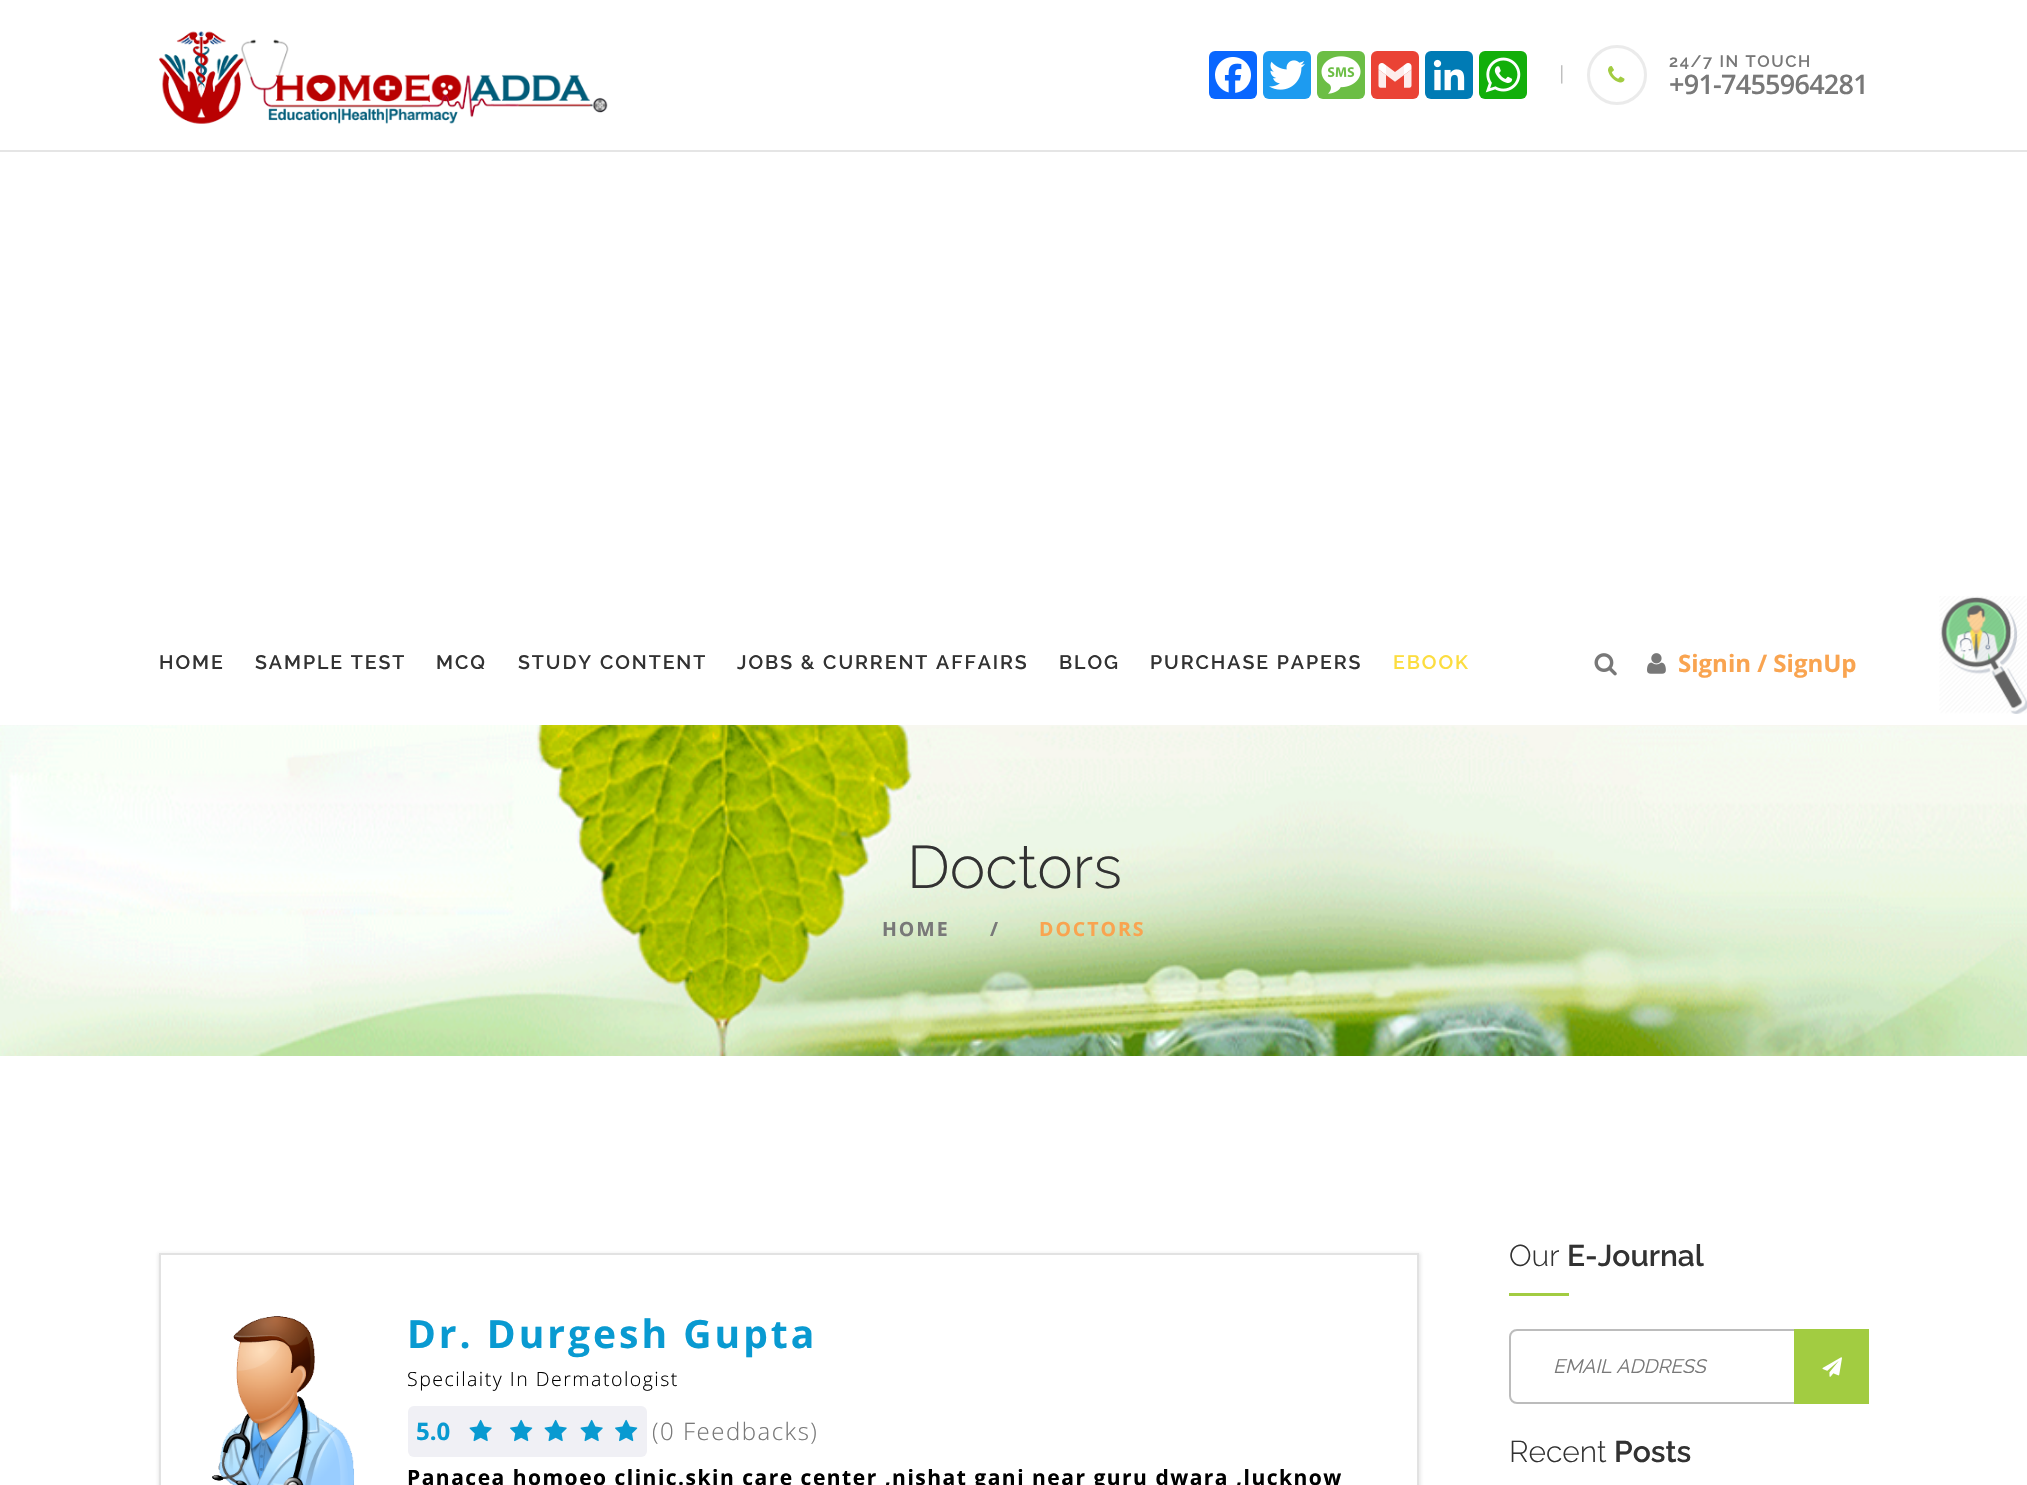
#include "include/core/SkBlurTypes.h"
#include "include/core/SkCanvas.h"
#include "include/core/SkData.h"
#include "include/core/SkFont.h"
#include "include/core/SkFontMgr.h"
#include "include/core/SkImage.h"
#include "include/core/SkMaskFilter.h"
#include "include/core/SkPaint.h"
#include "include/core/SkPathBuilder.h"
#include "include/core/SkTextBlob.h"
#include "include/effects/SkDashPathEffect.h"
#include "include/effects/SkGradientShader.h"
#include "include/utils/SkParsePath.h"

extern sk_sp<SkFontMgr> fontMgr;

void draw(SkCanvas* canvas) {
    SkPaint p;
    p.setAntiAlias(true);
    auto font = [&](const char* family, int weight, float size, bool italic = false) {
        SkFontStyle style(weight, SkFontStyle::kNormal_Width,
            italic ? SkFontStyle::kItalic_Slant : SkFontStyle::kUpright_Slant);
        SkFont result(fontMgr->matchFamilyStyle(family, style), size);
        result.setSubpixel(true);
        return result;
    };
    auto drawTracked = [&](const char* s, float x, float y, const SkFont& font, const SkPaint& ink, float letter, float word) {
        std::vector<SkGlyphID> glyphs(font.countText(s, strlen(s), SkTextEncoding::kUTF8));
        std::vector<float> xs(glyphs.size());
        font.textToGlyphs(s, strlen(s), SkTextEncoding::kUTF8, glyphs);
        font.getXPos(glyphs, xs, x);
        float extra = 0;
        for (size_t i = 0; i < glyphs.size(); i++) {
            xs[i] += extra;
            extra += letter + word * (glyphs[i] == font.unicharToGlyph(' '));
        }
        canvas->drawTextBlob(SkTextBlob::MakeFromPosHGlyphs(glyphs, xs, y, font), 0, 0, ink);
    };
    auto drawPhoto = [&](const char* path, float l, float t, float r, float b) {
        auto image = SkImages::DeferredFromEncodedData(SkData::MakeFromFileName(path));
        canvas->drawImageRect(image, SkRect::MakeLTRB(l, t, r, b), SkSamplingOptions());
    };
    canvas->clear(0xFFFFFFFF);
    drawPhoto("media/1.png", 159, 31, 608, 124);
    p.setColor(0xFF0866FF);
    canvas->drawRoundRect(SkRect::MakeLTRB(1209, 51, 1257, 99), 6, 6, p);
    drawPhoto("media/2.png", 1215, 57, 1251, 93);
    p.setColor(0xFF1D9BF0);
    canvas->drawRoundRect(SkRect::MakeLTRB(1263, 51, 1311, 99), 6, 6, p);
    drawPhoto("media/3.png", 1269, 60, 1305, 90);
    p.setColor(0xFF6CBE45);
    canvas->drawRoundRect(SkRect::MakeLTRB(1317, 51, 1365, 99), 6, 6, p);
    drawPhoto("media/4.png", 1321, 56, 1361, 94);
    p.setColor(0xFFEA4335);
    canvas->drawRoundRect(SkRect::MakeLTRB(1371, 51, 1419, 99), 6, 6, p);
    drawPhoto("media/5.png", 1378, 63, 1412, 88);
    p.setColor(0xFF007BB5);
    canvas->drawRoundRect(SkRect::MakeLTRB(1425, 51, 1473, 99), 6, 6, p);
    drawPhoto("media/6.png", 1433, 59, 1465, 91);
    p.setColor(0xFF12AF0A);
    canvas->drawRoundRect(SkRect::MakeLTRB(1479, 51, 1527, 99), 6, 6, p);
    drawPhoto("media/7.png", 1485, 57, 1521, 93);
    auto font1 = font("Open Sans", 300, 18);
    p.setColor(0xFF999999);
    canvas->drawString("|", 1557, 79, font1, p);
    p.setStyle(SkPaint::kStroke_Style);
    p.setStrokeWidth(3);
    p.setColor(0xFFEBEBEB);
    canvas->drawCircle(1617, 75, 28.5f, p);
    drawPhoto("media/8.png", 1608, 66, 1625, 83);
    auto font2 = font("Raleway", 600, 16.5f);
    p.setStyle(SkPaint::kFill_Style);
    p.setColor(0xFF787878);
    drawTracked("24/7 IN TOUCH", 1669, 67, font2, p, 1.6f, 0);
    auto font3 = font("Open Sans", 600, 27);
    drawTracked("+91-7455964281", 1669, 94, font3, p, -0.75f, 0);
    p.setColor(0xFFE5E5E5);
    canvas->drawRect(SkRect::MakeLTRB(0, 150, 2027, 152), p);
    auto font4 = font("Raleway", 600, 19.5f);
    p.setColor(0xFF323232);
    {
        const struct { const char* s; float x, y; } items[] = {
            {"HOME", 159, 669},
            {"SAMPLE TEST", 255, 669},
            {"MCQ", 436, 669},
            {"STUDY CONTENT", 518, 669},
            {"JOBS & CURRENT AFFAIRS", 737, 669},
            {"BLOG", 1059, 669},
            {"PURCHASE PAPERS", 1150, 669},
        };
        for (auto [s, x, y] : items) {
            drawTracked(s, x, y, font4, p, 1.95f, 0);
        }
    }
    p.setColor(0xFFFCDD3F);
    drawTracked("EBOOK", 1393, 669, font4, p, 1.95f, 0);
    drawPhoto("media/9.png", 1594, 653, 1617, 676);
    drawPhoto("media/10.png", 1647, 653, 1666, 674);
    auto font5 = font("Open Sans", 700, 24);
    p.setColor(0xFFF9A450);
    canvas->drawString("Signin / SignUp", 1678, 672, font5, p);
    drawPhoto("media/11.png", 1939, 596, 2027, 714);
    drawPhoto("media/12.png", 0, 725, 2027, 1056);
    auto font6 = font("Raleway", 300, 60);
    p.setColor(0xFF323232);
    canvas->drawString("Doctors", 907, 888, font6, p);
    auto font7 = font("Open Sans", 700, 19.5f);
    p.setColor(0xFF787878);
    drawTracked("HOME", 882, 936, font7, p, 1.95f, 0);
    drawTracked("/", 990, 936, font7, p, 1.95f, 0);
    p.setColor(0xFFF9A450);
    drawTracked("DOCTORS", 1039, 936, font7, p, 1.95f, 0);
    canvas->save();
    canvas->clipPath(SkPathBuilder(SkPathFillType::kEvenOdd).moveTo(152, 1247).lineTo(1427, 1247).lineTo(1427, 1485).lineTo(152, 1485).close().moveTo(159, 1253).lineTo(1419, 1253).lineTo(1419, 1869).lineTo(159, 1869).close().detach(), true);
    p.setColor(0x246E6E6E);
    p.setMaskFilter(SkMaskFilter::MakeBlur(kNormal_SkBlurStyle, 1.5f));
    canvas->drawRect(SkRect::MakeLTRB(158, 1253, 1421, 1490), p);
    p.setMaskFilter(nullptr);
    canvas->restore();
    p.setStyle(SkPaint::kStroke_Style);
    p.setStrokeWidth(2);
    p.setColor(0xFFE2E2E2);
    canvas->drawRect(SkRect::MakeLTRB(160, 1254, 1418, 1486), p);
    drawPhoto("media/13.png", 212, 1316, 355, 1485);
    auto font8 = font("Open Sans", 700, 39);
    p.setStyle(SkPaint::kFill_Style);
    p.setColor(0xFF099AD1);
    drawTracked("Dr. Durgesh Gupta", 407, 1348, font8, p, 3, 0);
    auto font9 = font("Open Sans", 300, 19.5f);
    p.setColor(0xFF000000);
    drawTracked("Specilaity In Dermatologist", 407, 1386, font9, p, 1.5f, 0);
    p.setColor(0xFFF0F0F5);
    canvas->drawRoundRect(SkRect::MakeLTRB(408, 1406, 647, 1457), 6, 6, p);
    p.setColor(0xFF099AD1);
    canvas->drawString("5.0", 416, 1440, font5, p);
    drawPhoto("media/14.png", 469, 1419, 492, 1442);
    drawPhoto("media/15.png", 510, 1419, 533, 1442);
    drawPhoto("media/14.png", 544, 1419, 567, 1442);
    drawPhoto("media/14.png", 580, 1419, 603, 1442);
    drawPhoto("media/15.png", 615, 1419, 638, 1442);
    auto font10 = font("Open Sans", 300, 24);
    p.setColor(0xFF787878);
    drawTracked("(0 Feedbacks)", 652, 1440, font10, p, 1.5f, 0);
    auto font11 = font("Open Sans", 700, 21);
    p.setColor(0xFF000000);
    drawTracked("Panacea homoeo clinic.skin care center ,nishat ganj near guru dwara ,lucknow", 407, 1485, font11, p, 1.5f, 0);
    auto font12 = font("Raleway", 300, 30);
    p.setColor(0xFF323232);
    canvas->drawString("Our", 1509, 1266, font12, p);
    auto font13 = font("Raleway", 600, 30);
    canvas->drawString("E-Journal", 1567, 1266, font13, p);
    p.setColor(0xFFA2CC41);
    canvas->drawRect(SkRect::MakeLTRB(1509, 1293, 1569, 1296), p);
    p.setStyle(SkPaint::kStroke_Style);
    p.setColor(0xFFBCBCBC);
    canvas->drawRoundRect(SkRect::MakeLTRB(1510, 1330, 1868, 1403), 7, 7, p);
    auto font14 = font("Raleway", 400, 19.5f, true);
    p.setStyle(SkPaint::kFill_Style);
    p.setColor(0xFF787878);
    canvas->drawString("EMAIL ADDRESS", 1553, 1373, font14, p);
    p.setColor(0xFFA2CC41);
    canvas->drawRect(SkRect::MakeLTRB(1794, 1329, 1869, 1404), p);
    drawPhoto("media/16.png", 1822, 1357, 1842, 1377);
    p.setColor(0xFF323232);
    canvas->drawString("Recent", 1509, 1462, font12, p);
    canvas->drawString("Posts", 1614, 1462, font13, p);
}
